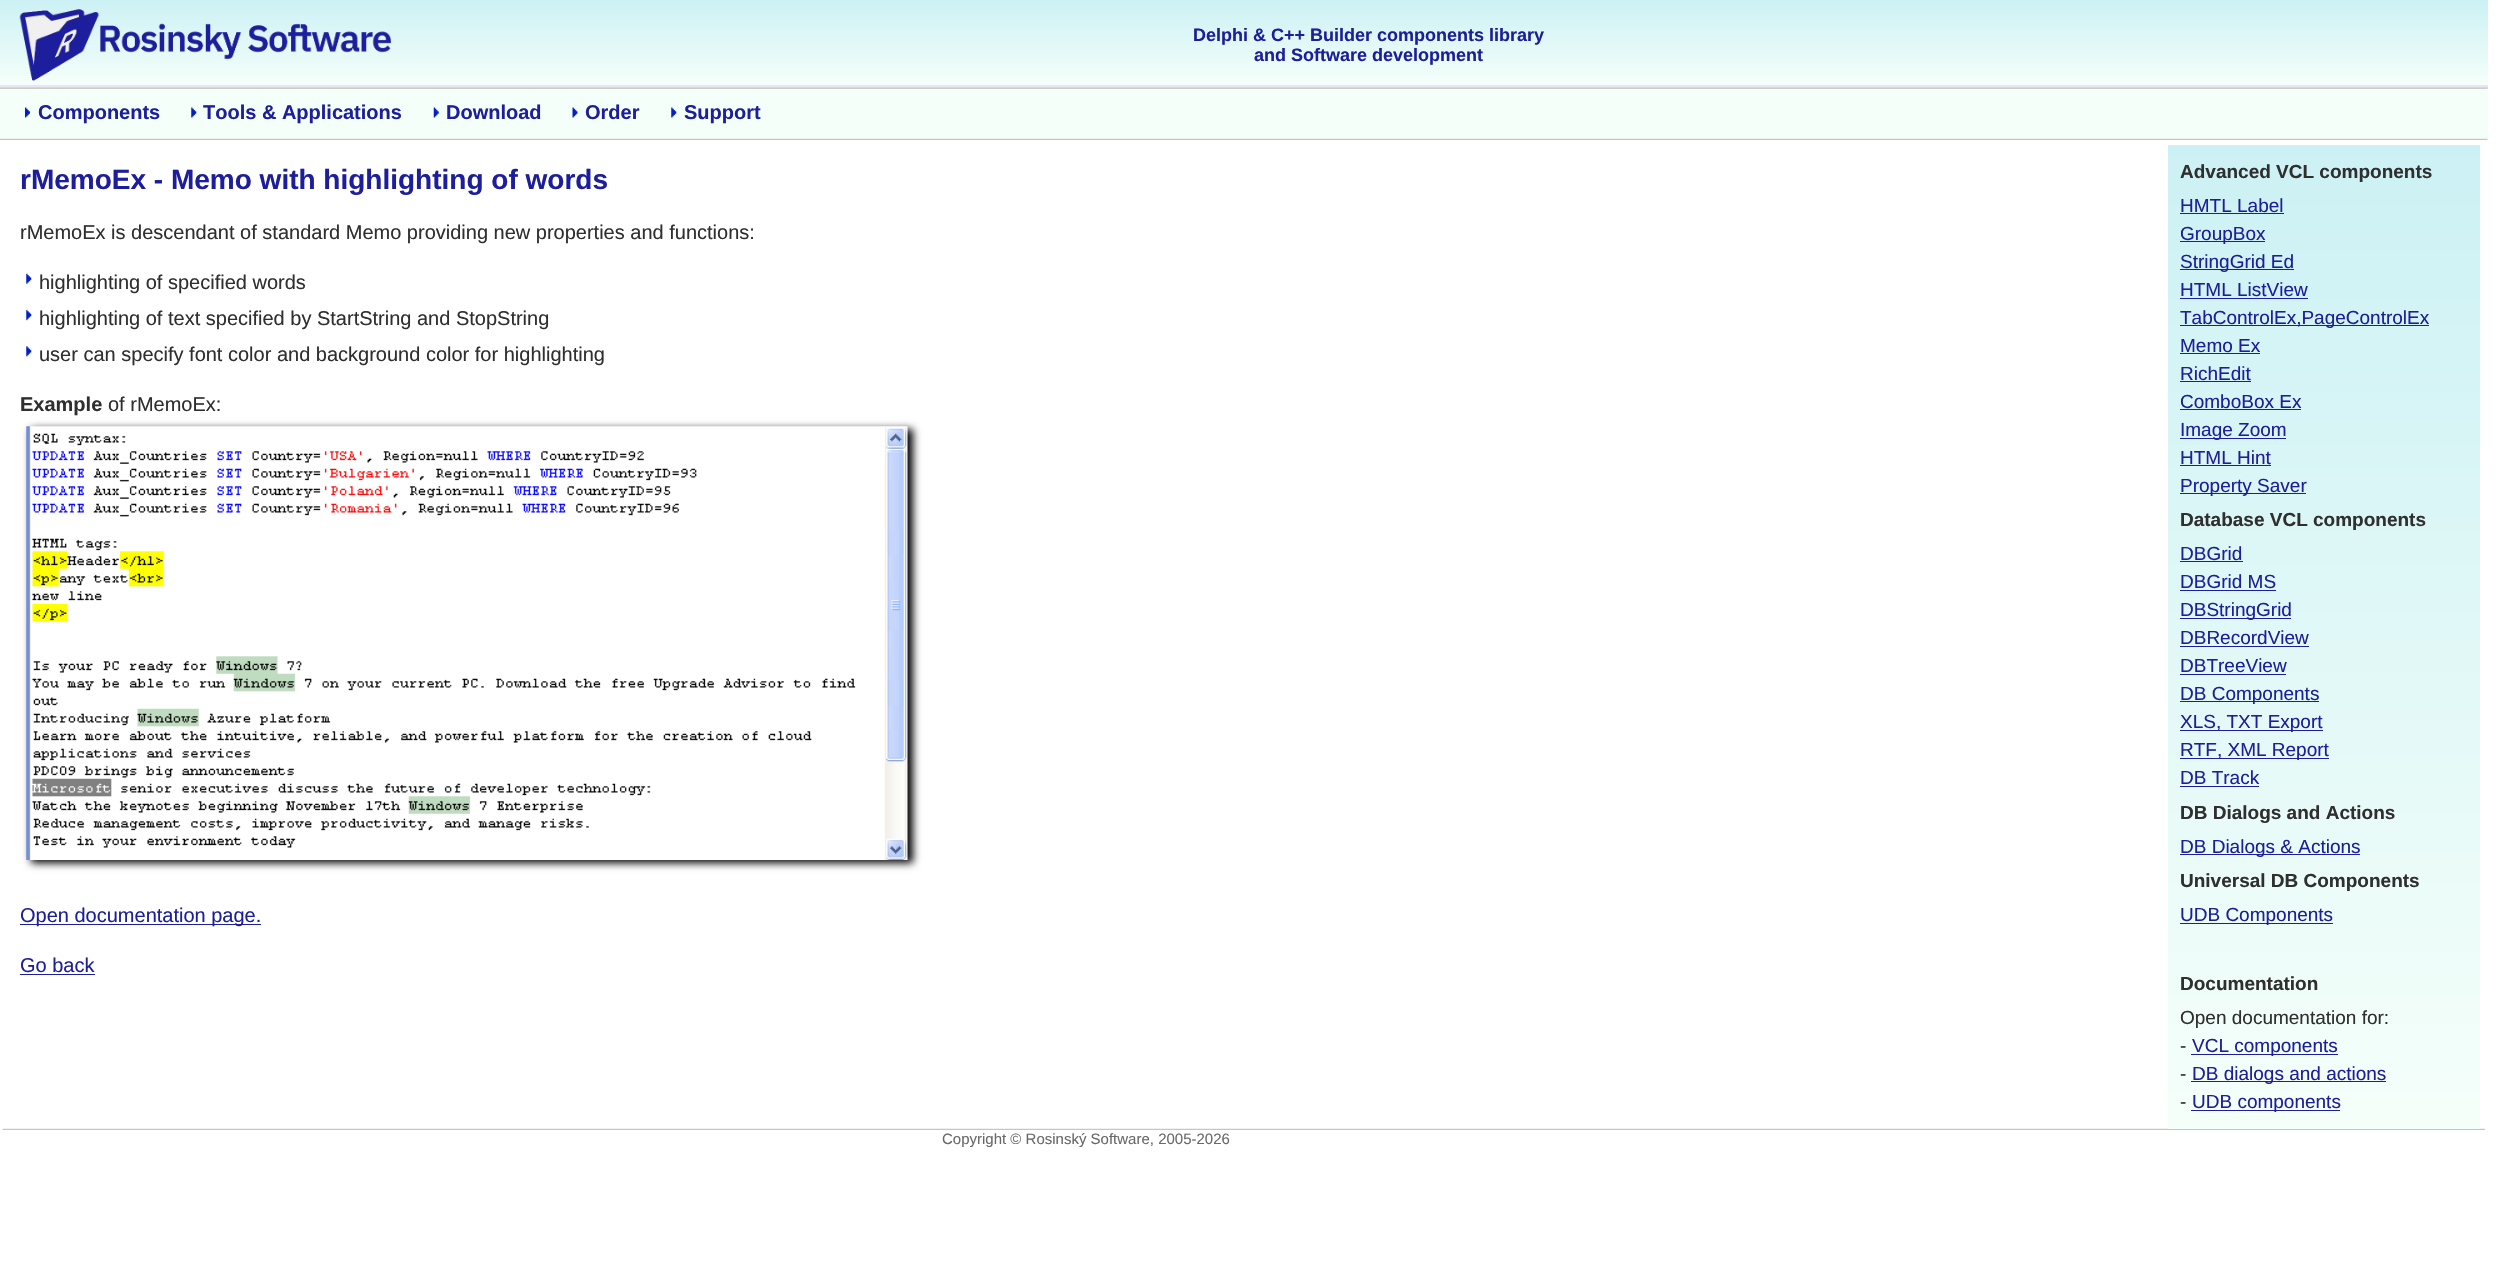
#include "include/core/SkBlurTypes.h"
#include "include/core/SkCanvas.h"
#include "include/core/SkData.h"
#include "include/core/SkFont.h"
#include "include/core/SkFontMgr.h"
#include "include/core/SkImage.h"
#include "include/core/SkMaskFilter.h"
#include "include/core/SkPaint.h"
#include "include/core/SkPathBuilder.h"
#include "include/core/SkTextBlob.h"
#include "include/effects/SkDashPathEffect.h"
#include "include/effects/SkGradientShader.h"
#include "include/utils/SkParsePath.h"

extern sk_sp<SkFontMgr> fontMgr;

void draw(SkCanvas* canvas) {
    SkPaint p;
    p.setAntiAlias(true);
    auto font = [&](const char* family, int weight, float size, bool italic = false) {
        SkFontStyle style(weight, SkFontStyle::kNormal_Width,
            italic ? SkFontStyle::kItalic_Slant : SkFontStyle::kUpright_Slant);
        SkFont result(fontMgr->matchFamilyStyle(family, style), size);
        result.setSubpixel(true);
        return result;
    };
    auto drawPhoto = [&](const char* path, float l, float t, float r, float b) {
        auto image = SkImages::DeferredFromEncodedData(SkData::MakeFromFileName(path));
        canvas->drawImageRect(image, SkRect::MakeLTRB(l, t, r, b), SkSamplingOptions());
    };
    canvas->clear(0xFFFFFFFF);
    p.setColor(0xFFE6E6FA);
    canvas->drawRect(SkRect::MakeLTRB(0, 85, 2488, 89), p);
    {
        const SkColor colors[] = {0xFFCCF1F4, 0xFFF5FFFA};
        const float stops[] = {0, 1};
        const SkPoint ends[] = {{1244, 0}, {1244, 85}};
        p.setShader(SkGradientShader::MakeLinear(ends, colors, stops, 2, SkTileMode::kClamp));
        p.setAlpha(255);
    }
    canvas->drawRect(SkRect::MakeLTRB(0, 0, 2488, 85), p);
    drawPhoto("media/1.png", 19, 9, 392, 81);
    auto font1 = font("Liberation Sans", 700, 18);
    p.setShader(nullptr);
    p.setColor(0xFF1D1E9C);
    canvas->drawString("Delphi & C++ Builder components library", 1193, 41, font1, p);
    canvas->drawString("and Software development", 1254, 61, font1, p);
    drawPhoto("media/2.png", 0, 87, 2488, 89);
    p.setColor(0xFFF5FFFA);
    canvas->drawRect(SkRect::MakeLTRB(0, 89, 2488, 139), p);
    drawPhoto("media/3.png", 25, 107, 30, 118);
    auto font2 = font("Liberation Sans", 700, 20);
    p.setColor(0xFF1D1E9C);
    canvas->drawString("Components", 38, 119, font2, p);
    drawPhoto("media/4.png", 191, 107, 197, 118);
    canvas->drawString("Tools & Applications", 203, 119, font2, p);
    drawPhoto("media/5.png", 433, 107, 439, 118);
    canvas->drawString("Download", 446, 119, font2, p);
    drawPhoto("media/6.png", 572, 107, 578, 118);
    canvas->drawString("Order", 585, 119, font2, p);
    drawPhoto("media/4.png", 671, 107, 677, 118);
    canvas->drawString("Support", 684, 119, font2, p);
    drawPhoto("media/7.png", 0, 138, 2488, 140);
    auto font3 = font("Liberation Sans", 700, 28);
    canvas->drawString("rMemoEx - Memo with highlighting of words", 20, 189, font3, p);
    auto font4 = font("Liberation Sans", 400, 20);
    p.setColor(0xFF2F2F2F);
    canvas->drawString("rMemoEx is descendant of standard Memo providing new properties and functions:", 20, 239, font4, p);
    drawPhoto("media/8.png", 26, 273, 32, 284);
    canvas->drawString("highlighting of specified words", 39, 289, font4, p);
    drawPhoto("media/9.png", 26, 309, 32, 321);
    canvas->drawString("highlighting of text specified by StartString and StopString", 39, 325, font4, p);
    drawPhoto("media/10.png", 26, 346, 32, 357);
    canvas->drawString("user can specify font color and background color for highlighting", 39, 361, font4, p);
    canvas->drawString("Example", 20, 411, font2, p);
    canvas->drawString("of rMemoEx:", 108, 411, font4, p);
    p.setColor(0xFF010101);
    p.setMaskFilter(SkMaskFilter::MakeBlur(kNormal_SkBlurStyle, 4));
    canvas->drawRect(SkRect::MakeLTRB(31, 429, 913, 863), p);
    p.setMaskFilter(nullptr);
    drawPhoto("media/11.png", 26, 426, 908, 860);
    p.setColor(0xFF1D1E9C);
    canvas->drawRect(SkRect::MakeLTRB(20, 924, 261, 925), p);
    canvas->drawString("Open documentation page.", 20, 922, font4, p);
    canvas->drawString("Go back", 20, 972, font4, p);
    canvas->drawRect(SkRect::MakeLTRB(20, 974, 95, 975), p);
    drawPhoto("media/12.png", 2, 1128, 2485, 1130);
    {
        const SkColor colors[] = {0xFFCCF1F4, 0xFFF5FFFA};
        const float stops[] = {0, 1};
        const SkPoint ends[] = {{2324, 145}, {2324, 1129}};
        p.setShader(SkGradientShader::MakeLinear(ends, colors, stops, 2, SkTileMode::kClamp));
        p.setAlpha(255);
    }
    canvas->drawRect(SkRect::MakeLTRB(2168, 145, 2480, 1129), p);
    auto font5 = font("Liberation Sans", 700, 19);
    p.setShader(nullptr);
    p.setColor(0xFF2F2F2F);
    canvas->drawString("Advanced VCL components", 2180, 178, font5, p);
    auto font6 = font("Liberation Sans", 400, 19);
    p.setColor(0xFF1D1E9C);
    canvas->drawString("HMTL Label", 2180, 212, font6, p);
    canvas->drawRect(SkRect::MakeLTRB(2180, 213, 2284, 214), p);
    canvas->drawRect(SkRect::MakeLTRB(2180, 241, 2265, 242), p);
    canvas->drawString("GroupBox", 2180, 240, font6, p);
    canvas->drawRect(SkRect::MakeLTRB(2180, 269, 2294, 270), p);
    canvas->drawString("StringGrid Ed", 2180, 268, font6, p);
    canvas->drawString("HTML ListView", 2180, 296, font6, p);
    canvas->drawRect(SkRect::MakeLTRB(2180, 298, 2308, 299), p);
    canvas->drawRect(SkRect::MakeLTRB(2180, 325, 2429, 326), p);
    canvas->drawString("TabControlEx,PageControlEx", 2180, 324, font6, p);
    canvas->drawString("Memo Ex", 2180, 352, font6, p);
    canvas->drawRect(SkRect::MakeLTRB(2180, 353, 2260, 354), p);
    canvas->drawString("RichEdit", 2180, 380, font6, p);
    canvas->drawRect(SkRect::MakeLTRB(2180, 381, 2251, 382), p);
    canvas->drawString("ComboBox Ex", 2180, 408, font6, p);
    canvas->drawRect(SkRect::MakeLTRB(2180, 409, 2301, 410), p);
    canvas->drawRect(SkRect::MakeLTRB(2180, 438, 2286, 439), p);
    canvas->drawString("Image Zoom", 2180, 436, font6, p);
    canvas->drawString("HTML Hint", 2180, 464, font6, p);
    canvas->drawRect(SkRect::MakeLTRB(2180, 465, 2271, 466), p);
    canvas->drawRect(SkRect::MakeLTRB(2180, 493, 2306, 494), p);
    canvas->drawString("Property Saver", 2180, 492, font6, p);
    p.setColor(0xFF2F2F2F);
    canvas->drawString("Database VCL components", 2180, 526, font5, p);
    p.setColor(0xFF1D1E9C);
    canvas->drawString("DBGrid", 2180, 560, font6, p);
    canvas->drawRect(SkRect::MakeLTRB(2180, 561, 2243, 562), p);
    canvas->drawString("DBGrid MS", 2180, 588, font6, p);
    canvas->drawRect(SkRect::MakeLTRB(2180, 590, 2276, 591), p);
    canvas->drawRect(SkRect::MakeLTRB(2180, 618, 2291, 619), p);
    canvas->drawString("DBStringGrid", 2180, 616, font6, p);
    canvas->drawString("DBRecordView", 2180, 644, font6, p);
    canvas->drawRect(SkRect::MakeLTRB(2180, 646, 2309, 647), p);
    canvas->drawString("DBTreeView", 2180, 672, font6, p);
    canvas->drawRect(SkRect::MakeLTRB(2180, 674, 2286, 675), p);
    canvas->drawRect(SkRect::MakeLTRB(2180, 701, 2319, 702), p);
    canvas->drawString("DB Components", 2180, 700, font6, p);
    canvas->drawRect(SkRect::MakeLTRB(2180, 730, 2323, 731), p);
    canvas->drawString("XLS, TXT Export", 2180, 728, font6, p);
    canvas->drawRect(SkRect::MakeLTRB(2180, 758, 2329, 759), p);
    canvas->drawString("RTF, XML Report", 2180, 756, font6, p);
    canvas->drawString("DB Track", 2180, 784, font6, p);
    canvas->drawRect(SkRect::MakeLTRB(2180, 786, 2259, 787), p);
    p.setColor(0xFF2F2F2F);
    canvas->drawString("DB Dialogs and Actions", 2180, 819, font5, p);
    p.setColor(0xFF1D1E9C);
    canvas->drawRect(SkRect::MakeLTRB(2180, 854, 2360, 855), p);
    canvas->drawString("DB Dialogs & Actions", 2180, 853, font6, p);
    p.setColor(0xFF2F2F2F);
    canvas->drawString("Universal DB Components", 2180, 887, font5, p);
    p.setColor(0xFF1D1E9C);
    canvas->drawRect(SkRect::MakeLTRB(2180, 923, 2333, 924), p);
    canvas->drawString("UDB Components", 2180, 921, font6, p);
    p.setColor(0xFF2F2F2F);
    canvas->drawString("Documentation", 2180, 990, font5, p);
    canvas->drawString("Open documentation for:", 2180, 1024, font6, p);
    canvas->drawString("-", 2180, 1052, font6, p);
    p.setColor(0xFF1D1E9C);
    canvas->drawRect(SkRect::MakeLTRB(2191, 1054, 2338, 1055), p);
    canvas->drawString("VCL components", 2192, 1052, font6, p);
    p.setColor(0xFF2F2F2F);
    canvas->drawString("-", 2180, 1080, font6, p);
    p.setColor(0xFF1D1E9C);
    canvas->drawRect(SkRect::MakeLTRB(2191, 1081, 2386, 1082), p);
    canvas->drawString("DB dialogs and actions", 2192, 1080, font6, p);
    p.setColor(0xFF2F2F2F);
    canvas->drawString("-", 2180, 1108, font6, p);
    p.setColor(0xFF1D1E9C);
    canvas->drawRect(SkRect::MakeLTRB(2191, 1110, 2340, 1111), p);
    canvas->drawString("UDB components", 2192, 1108, font6, p);
    auto font7 = font("Liberation Sans", 400, 15);
    p.setColor(0xFF696969);
    canvas->drawString("Copyright © Rosinský Software, 2005-2026", 942, 1144, font7, p);
}
